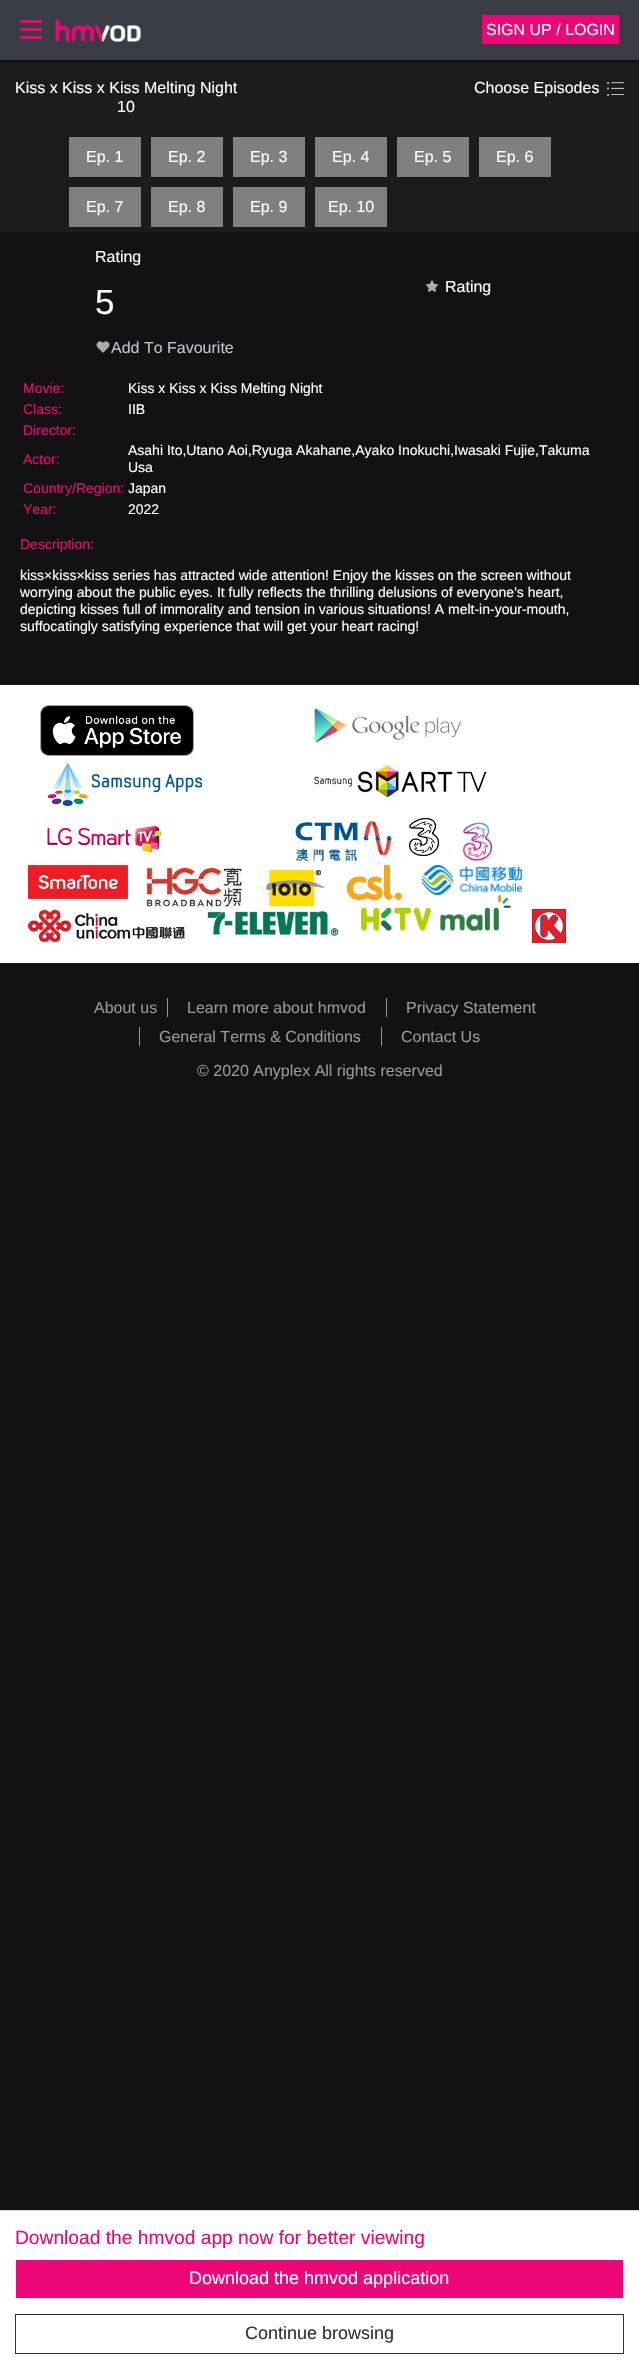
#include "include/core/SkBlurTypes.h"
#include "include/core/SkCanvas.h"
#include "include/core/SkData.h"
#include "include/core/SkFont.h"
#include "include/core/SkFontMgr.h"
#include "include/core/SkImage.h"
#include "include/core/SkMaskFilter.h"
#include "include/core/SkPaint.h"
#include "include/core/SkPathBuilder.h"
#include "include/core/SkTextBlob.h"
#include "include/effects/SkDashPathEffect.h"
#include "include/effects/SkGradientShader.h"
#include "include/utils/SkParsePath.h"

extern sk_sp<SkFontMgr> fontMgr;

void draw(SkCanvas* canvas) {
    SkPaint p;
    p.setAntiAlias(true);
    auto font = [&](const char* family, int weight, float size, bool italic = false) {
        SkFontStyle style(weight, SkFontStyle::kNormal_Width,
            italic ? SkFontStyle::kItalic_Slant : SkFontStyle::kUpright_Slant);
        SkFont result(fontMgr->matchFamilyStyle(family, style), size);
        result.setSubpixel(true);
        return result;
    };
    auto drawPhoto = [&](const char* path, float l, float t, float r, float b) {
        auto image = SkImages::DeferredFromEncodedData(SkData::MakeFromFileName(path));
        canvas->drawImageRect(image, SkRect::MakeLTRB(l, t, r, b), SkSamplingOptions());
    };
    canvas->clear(0xFF121212);
    {
        const struct { float l, t, r, b; SkColor color; } items[] = {
            {0, 0, 639, 60, 0xFF393D43},
            {20, 20, 42, 23, 0xFFEC0677},
            {20, 28, 42, 31, 0xFFEC0677},
            {20, 36, 42, 39, 0xFFEC0677},
        };
        for (auto [l, t, r, b, color] : items) {
            p.setColor(color);
            canvas->drawRect(SkRect::MakeLTRB(l, t, r, b), p);
        }
    }
    drawPhoto("media/1.png", 55, 19, 142, 43);
    canvas->drawRect(SkRect::MakeLTRB(482, 15, 619, 44), p);
    auto font1 = font("Liberation Sans", 400, 16);
    p.setColor(0xFFFFFFFF);
    canvas->drawString("SIGN UP / LOGIN", 486, 35, font1, p);
    p.setColor(0xFF1C1C1C);
    canvas->drawRect(SkRect::MakeLTRB(0, 63, 639, 232), p);
    p.setColor(0xFFFFFFFF);
    {
        const struct { const char* s; float x, y; } items[] = {
            {"Kiss x Kiss x Kiss Melting Night", 15, 93},
            {"10", 117, 112},
            {"Choose Episodes", 474, 93},
        };
        for (auto [s, x, y] : items) {
            canvas->drawString(s, x, y, font1, p);
        }
    }
    drawPhoto("media/2.png", 607, 82, 624, 96);
    p.setColor(0xFF808080);
    canvas->drawRect(SkRect::MakeLTRB(69, 137, 141, 177), p);
    p.setColor(0xFFFFFFFF);
    canvas->drawString("Ep. 1", 86, 162, font1, p);
    p.setColor(0xFF808080);
    canvas->drawRect(SkRect::MakeLTRB(151, 137, 223, 177), p);
    p.setColor(0xFFFFFFFF);
    canvas->drawString("Ep. 2", 168, 162, font1, p);
    p.setColor(0xFF808080);
    canvas->drawRect(SkRect::MakeLTRB(233, 137, 305, 177), p);
    p.setColor(0xFFFFFFFF);
    canvas->drawString("Ep. 3", 250, 162, font1, p);
    p.setColor(0xFF808080);
    canvas->drawRect(SkRect::MakeLTRB(315, 137, 387, 177), p);
    p.setColor(0xFFFFFFFF);
    canvas->drawString("Ep. 4", 332, 162, font1, p);
    p.setColor(0xFF808080);
    canvas->drawRect(SkRect::MakeLTRB(397, 137, 469, 177), p);
    p.setColor(0xFFFFFFFF);
    canvas->drawString("Ep. 5", 414, 162, font1, p);
    p.setColor(0xFF808080);
    canvas->drawRect(SkRect::MakeLTRB(479, 137, 551, 177), p);
    p.setColor(0xFFFFFFFF);
    canvas->drawString("Ep. 6", 496, 162, font1, p);
    p.setColor(0xFF808080);
    canvas->drawRect(SkRect::MakeLTRB(69, 187, 141, 227), p);
    p.setColor(0xFFFFFFFF);
    canvas->drawString("Ep. 7", 86, 212, font1, p);
    p.setColor(0xFF808080);
    canvas->drawRect(SkRect::MakeLTRB(151, 187, 223, 227), p);
    p.setColor(0xFFFFFFFF);
    canvas->drawString("Ep. 8", 168, 212, font1, p);
    p.setColor(0xFF808080);
    canvas->drawRect(SkRect::MakeLTRB(233, 187, 305, 227), p);
    p.setColor(0xFFFFFFFF);
    canvas->drawString("Ep. 9", 250, 212, font1, p);
    p.setColor(0xFF808080);
    canvas->drawRect(SkRect::MakeLTRB(315, 187, 387, 227), p);
    p.setColor(0xFFFFFFFF);
    canvas->drawString("Ep. 10", 328, 212, font1, p);
    canvas->drawString("Rating", 95, 262, font1, p);
    auto font2 = font("Liberation Sans", 400, 35);
    canvas->drawString("5", 95, 314, font2, p);
    drawPhoto("media/3.png", 96, 341, 110, 353);
    p.setColor(0xFFC0C4CC);
    canvas->drawString("Add To Favourite", 111, 353, font1, p);
    drawPhoto("media/4.png", 425, 280, 439, 292);
    p.setColor(0xFFFFFFFF);
    canvas->drawString("Rating", 445, 292, font1, p);
    auto font3 = font("Liberation Sans", 400, 14);
    p.setColor(0xFFEC0677);
    canvas->drawString("Movie:", 23, 393, font3, p);
    p.setColor(0xFFFFFFFF);
    canvas->drawString("Kiss x Kiss x Kiss Melting Night", 128, 393, font3, p);
    p.setColor(0xFFEC0677);
    canvas->drawString("Class:", 23, 414, font3, p);
    p.setColor(0xFFFFFFFF);
    canvas->drawString("IIB", 128, 414, font3, p);
    p.setColor(0xFFEC0677);
    canvas->drawString("Director:", 23, 435, font3, p);
    canvas->drawString("Actor:", 23, 464, font3, p);
    p.setColor(0xFFFFFFFF);
    canvas->drawString("Asahi Ito,Utano Aoi,Ryuga Akahane,Ayako Inokuchi,Iwasaki Fujie,Takuma", 128, 455, font3, p);
    canvas->drawString("Usa", 128, 472, font3, p);
    p.setColor(0xFFEC0677);
    canvas->drawString("Country/Region:", 23, 493, font3, p);
    p.setColor(0xFFFFFFFF);
    canvas->drawString("Japan", 128, 493, font3, p);
    p.setColor(0xFFEC0677);
    canvas->drawString("Year:", 23, 514, font3, p);
    p.setColor(0xFFFFFFFF);
    canvas->drawString("2022", 128, 514, font3, p);
    p.setColor(0xFFEC0677);
    canvas->drawString("Description:", 20, 549, font3, p);
    p.setColor(0xFFFFFFFF);
    {
        const struct { const char* s; float x, y; } items[] = {
            {"kiss×kiss×kiss series has attracted wide attention! Enjoy the kisses on the screen without", 20, 580},
            {"worrying about the public eyes. It fully reflects the thrilling delusions of everyone's heart,", 20, 597},
            {"depicting kisses full of immorality and tension in various situations! A melt-in-your-mouth,", 20, 614},
            {"suffocatingly satisfying experience that will get your heart racing!", 20, 631},
        };
        for (auto [s, x, y] : items) {
            canvas->drawString(s, x, y, font3, p);
        }
    }
    canvas->drawRect(SkRect::MakeLTRB(0, 685, 639, 963), p);
    drawPhoto("media/5.png", 40, 705, 194, 756);
    drawPhoto("media/6.png", 314, 708, 461, 743);
    drawPhoto("media/7.png", 47, 762, 202, 806);
    drawPhoto("media/8.png", 314, 765, 487, 797);
    drawPhoto("media/9.png", 47, 826, 161, 853);
    drawPhoto("media/10.png", 295, 820, 392, 862);
    drawPhoto("media/11.png", 409, 818, 439, 856);
    drawPhoto("media/12.png", 462, 822, 492, 861);
    drawPhoto("media/13.png", 28, 865, 128, 899);
    drawPhoto("media/14.png", 144, 865, 243, 908);
    drawPhoto("media/15.png", 266, 870, 325, 906);
    drawPhoto("media/16.png", 347, 865, 402, 900);
    drawPhoto("media/17.png", 422, 865, 522, 895);
    drawPhoto("media/18.png", 28, 909, 185, 942);
    drawPhoto("media/19.png", 206, 909, 339, 937);
    drawPhoto("media/20.png", 361, 895, 511, 931);
    drawPhoto("media/21.png", 532, 909, 566, 943);
    p.setColor(0xFF999999);
    canvas->drawString("About us", 94, 1013, font1, p);
    canvas->drawRect(SkRect::MakeLTRB(167, 998, 168, 1017), p);
    canvas->drawString("Learn more about hmvod", 187, 1013, font1, p);
    canvas->drawRect(SkRect::MakeLTRB(386, 998, 387, 1017), p);
    canvas->drawString("Privacy Statement", 406, 1013, font1, p);
    canvas->drawRect(SkRect::MakeLTRB(139, 1027, 140, 1046), p);
    canvas->drawString("General Terms & Conditions", 159, 1042, font1, p);
    canvas->drawRect(SkRect::MakeLTRB(381, 1027, 382, 1046), p);
    canvas->drawString("Contact Us", 401, 1042, font1, p);
    canvas->drawString("© 2020 Anyplex All rights reserved", 197, 1076, font1, p);
    p.setColor(0xFFFFFFFF);
    canvas->drawRect(SkRect::MakeLTRB(0, 2211, 639, 2369), p);
    p.setColor(0xFFD9D9D9);
    canvas->drawRect(SkRect::MakeLTRB(0, 2210, 639, 2211), p);
    auto font4 = font("Liberation Sans", 400, 19.2f);
    p.setColor(0xFFEC0677);
    canvas->drawString("Download the hmvod app now for better viewing", 15, 2244, font4, p);
    canvas->drawRect(SkRect::MakeLTRB(16, 2260, 623, 2298), p);
    auto font5 = font("Liberation Sans", 400, 18);
    p.setColor(0xFFFFFFFF);
    canvas->drawString("Download the hmvod application", 189, 2284, font5, p);
    p.setStyle(SkPaint::kStroke_Style);
    p.setStrokeWidth(1);
    p.setColor(0xFF333333);
    canvas->drawRect(SkRect::MakeLTRB(15.5f, 2314.5f, 623.5f, 2353.5f), p);
    p.setStyle(SkPaint::kFill_Style);
    canvas->drawString("Continue browsing", 245, 2339, font5, p);
}
